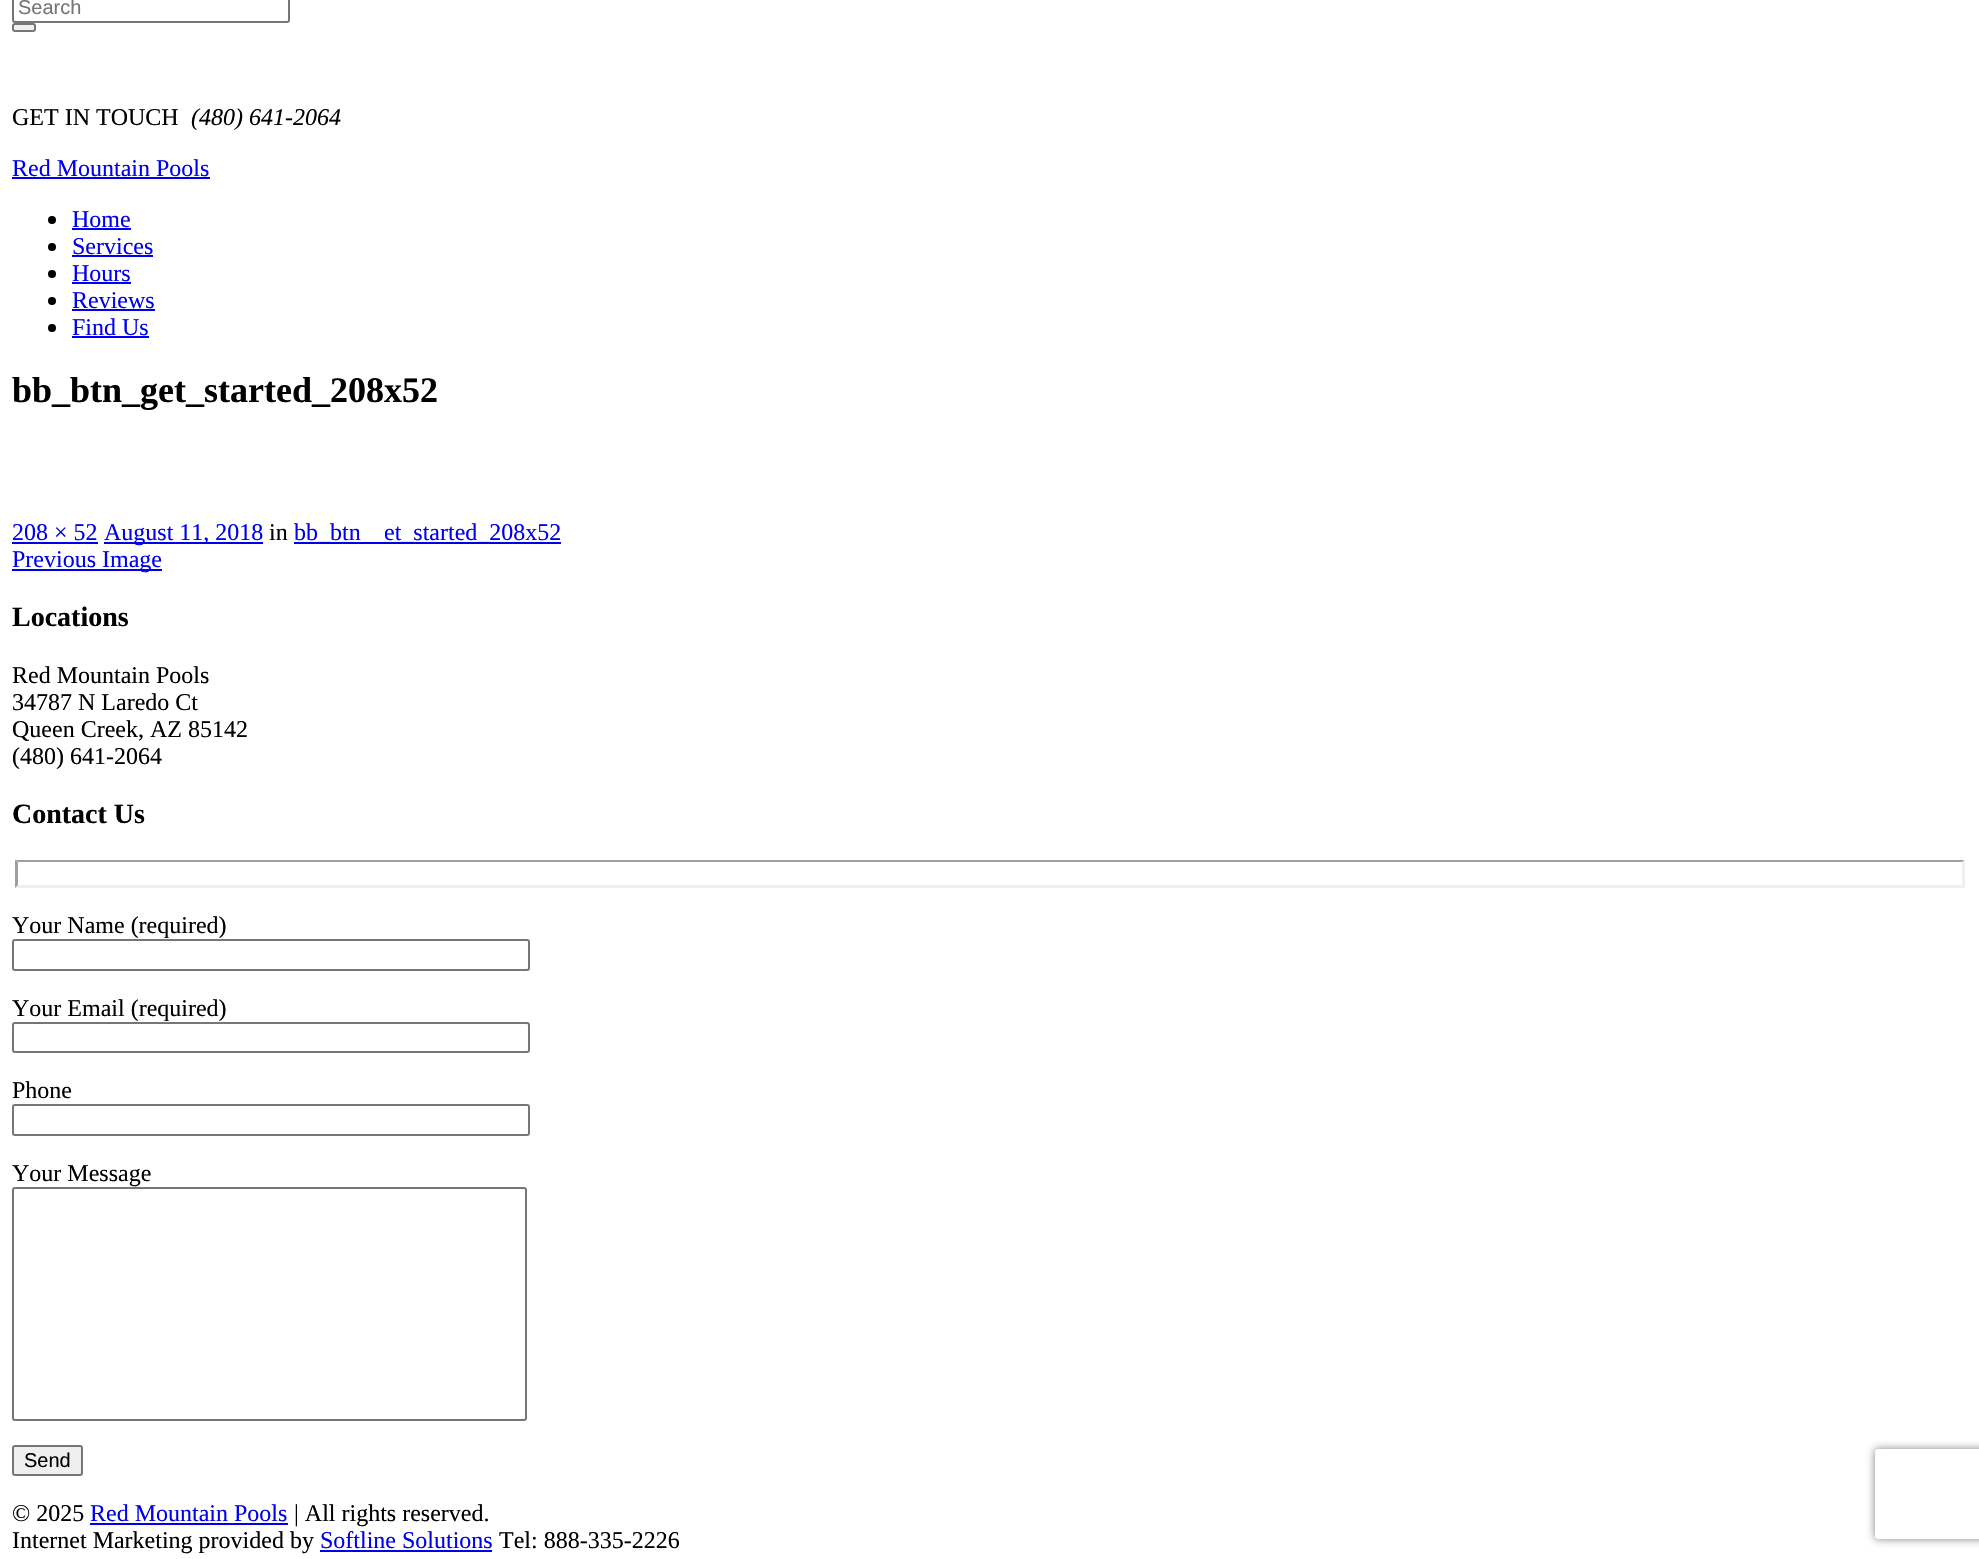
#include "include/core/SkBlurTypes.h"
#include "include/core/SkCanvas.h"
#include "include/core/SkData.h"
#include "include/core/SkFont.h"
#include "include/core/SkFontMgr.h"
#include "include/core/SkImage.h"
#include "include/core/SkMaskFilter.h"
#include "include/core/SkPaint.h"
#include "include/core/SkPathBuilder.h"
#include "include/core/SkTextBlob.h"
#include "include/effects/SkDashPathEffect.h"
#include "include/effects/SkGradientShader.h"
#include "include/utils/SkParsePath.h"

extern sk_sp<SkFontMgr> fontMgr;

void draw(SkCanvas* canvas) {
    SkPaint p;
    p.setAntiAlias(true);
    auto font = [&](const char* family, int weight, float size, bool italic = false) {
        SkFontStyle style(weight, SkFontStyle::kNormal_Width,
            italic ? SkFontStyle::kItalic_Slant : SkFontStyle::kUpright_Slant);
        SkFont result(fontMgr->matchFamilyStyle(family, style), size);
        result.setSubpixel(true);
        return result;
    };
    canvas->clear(0xFFFFFFFF);
    p.setStyle(SkPaint::kStroke_Style);
    p.setStrokeWidth(2);
    p.setColor(0xFF767676);
    canvas->drawRoundRect(SkRect::MakeLTRB(13, -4, 289, 22), 2, 2, p);
    auto font1 = font("Liberation Sans", 400, 20);
    p.setStyle(SkPaint::kFill_Style);
    p.setColor(0xFF757575);
    canvas->drawString("Search", 18, 14, font1, p);
    p.setColor(0xFFEFEFEF);
    canvas->drawRoundRect(SkRect::MakeLTRB(13, 24, 35, 31), 2, 2, p);
    p.setStyle(SkPaint::kStroke_Style);
    p.setColor(0xFF767676);
    canvas->drawRoundRect(SkRect::MakeLTRB(13, 24, 35, 31), 2, 2, p);
    auto font2 = font("Liberation Serif", 400, 24);
    p.setStyle(SkPaint::kFill_Style);
    p.setColor(0xFF000000);
    canvas->drawString("GET IN TOUCH", 12, 125, font2, p);
    auto font3 = font("Liberation Serif", 400, 24, true);
    canvas->drawString("(480) 641-2064", 191, 125, font3, p);
    p.setColor(0xFF0000EE);
    canvas->drawString("Red Mountain Pools", 12, 176, font2, p);
    canvas->drawRect(SkRect::MakeLTRB(12, 177, 210, 179), p);
    p.setColor(0xFF000000);
    canvas->drawCircle(52, 220, 4, p);
    p.setColor(0xFF0000EE);
    canvas->drawString("Home", 72, 227, font2, p);
    canvas->drawRect(SkRect::MakeLTRB(72, 228, 131, 230), p);
    p.setColor(0xFF000000);
    canvas->drawCircle(52, 247, 4, p);
    p.setColor(0xFF0000EE);
    canvas->drawString("Services", 72, 254, font2, p);
    canvas->drawRect(SkRect::MakeLTRB(72, 255, 153, 257), p);
    p.setColor(0xFF000000);
    canvas->drawCircle(52, 274, 4, p);
    p.setColor(0xFF0000EE);
    canvas->drawString("Hours", 72, 281, font2, p);
    canvas->drawRect(SkRect::MakeLTRB(72, 282, 131, 284), p);
    p.setColor(0xFF000000);
    canvas->drawCircle(52, 301, 4, p);
    p.setColor(0xFF0000EE);
    canvas->drawString("Reviews", 72, 308, font2, p);
    canvas->drawRect(SkRect::MakeLTRB(72, 309, 155, 311), p);
    p.setColor(0xFF000000);
    canvas->drawCircle(52, 328, 4, p);
    p.setColor(0xFF0000EE);
    canvas->drawString("Find Us", 72, 335, font2, p);
    canvas->drawRect(SkRect::MakeLTRB(72, 336, 149, 338), p);
    auto font4 = font("Liberation Serif", 700, 36);
    p.setColor(0xFF000000);
    canvas->drawString("bb_btn_get_started_208x52", 12, 402, font4, p);
    p.setColor(0xFF0000EE);
    canvas->drawString("208 × 52", 12, 540, font2, p);
    canvas->drawRect(SkRect::MakeLTRB(12, 542, 98, 544), p);
    canvas->drawRect(SkRect::MakeLTRB(104, 542, 263, 544), p);
    canvas->drawString("August 11, 2018", 104, 540, font2, p);
    p.setColor(0xFF000000);
    canvas->drawString("in", 269, 540, font2, p);
    p.setColor(0xFF0000EE);
    canvas->drawRect(SkRect::MakeLTRB(294, 542, 561, 544), p);
    canvas->drawString("bb_btn", 294, 540, font2, p);
    canvas->drawString("et_started_208x52", 384, 540, font2, p);
    canvas->drawRect(SkRect::MakeLTRB(12, 569, 162, 571), p);
    canvas->drawString("Previous Image", 12, 567, font2, p);
    auto font5 = font("Liberation Serif", 700, 28);
    p.setColor(0xFF000000);
    canvas->drawString("Locations", 12, 626, font5, p);
    {
        const struct { const char* s; float x, y; } items[] = {
            {"Red Mountain Pools", 12, 683},
            {"34787 N Laredo Ct", 12, 710},
            {"Queen Creek, AZ 85142", 12, 737},
            {"(480) 641-2064", 12, 764},
        };
        for (auto [s, x, y] : items) {
            canvas->drawString(s, x, y, font2, p);
        }
    }
    canvas->drawString("Contact Us", 12, 823, font5, p);
    p.setColor(0xFF9F9F9F);
    canvas->drawPath(SkPathBuilder().moveTo(15, 860).lineTo(1965, 860).lineTo(1962, 862).lineTo(18, 862).close().detach(), p);
    p.setColor(0xFFEFEFEF);
    canvas->drawPath(SkPathBuilder().moveTo(1965, 859.5f).lineTo(1965, 888).lineTo(1962, 885).lineTo(1962, 862.5f).close().detach(), p);
    canvas->drawPath(SkPathBuilder().moveTo(1965, 888).lineTo(15, 888).lineTo(18, 885).lineTo(1962, 885).close().detach(), p);
    p.setColor(0xFF9F9F9F);
    canvas->drawPath(SkPathBuilder().moveTo(15, 888).lineTo(15, 859.5f).lineTo(18, 862.5f).lineTo(18, 885).close().detach(), p);
    p.setColor(0xFF000000);
    canvas->drawString("Your Name (required)", 12, 933, font2, p);
    p.setStyle(SkPaint::kStroke_Style);
    p.setColor(0xFF767676);
    canvas->drawRoundRect(SkRect::MakeLTRB(13, 940, 529, 970), 2, 2, p);
    p.setStyle(SkPaint::kFill_Style);
    p.setColor(0xFF000000);
    canvas->drawString("Your Email (required)", 12, 1016, font2, p);
    p.setStyle(SkPaint::kStroke_Style);
    p.setColor(0xFF767676);
    canvas->drawRoundRect(SkRect::MakeLTRB(13, 1023, 529, 1052), 2, 2, p);
    p.setStyle(SkPaint::kFill_Style);
    p.setColor(0xFF000000);
    canvas->drawString("Phone", 12, 1098, font2, p);
    p.setStyle(SkPaint::kStroke_Style);
    p.setColor(0xFF767676);
    canvas->drawRoundRect(SkRect::MakeLTRB(13, 1105, 529, 1135), 2, 2, p);
    p.setStyle(SkPaint::kFill_Style);
    p.setColor(0xFF000000);
    canvas->drawString("Your Message", 12, 1181, font2, p);
    p.setStyle(SkPaint::kStroke_Style);
    p.setColor(0xFF767676);
    canvas->drawRoundRect(SkRect::MakeLTRB(13, 1188, 526, 1420), 2, 2, p);
    p.setStyle(SkPaint::kFill_Style);
    p.setColor(0xFFEFEFEF);
    canvas->drawRoundRect(SkRect::MakeLTRB(13, 1446, 82, 1475), 2, 2, p);
    p.setStyle(SkPaint::kStroke_Style);
    p.setColor(0xFF767676);
    canvas->drawRoundRect(SkRect::MakeLTRB(13, 1446, 82, 1475), 2, 2, p);
    p.setStyle(SkPaint::kFill_Style);
    p.setColor(0xFF000000);
    canvas->drawString("Send", 24, 1467, font1, p);
    canvas->drawString("© 2025", 12, 1521, font2, p);
    p.setColor(0xFF0000EE);
    canvas->drawString("Red Mountain Pools", 90, 1521, font2, p);
    canvas->drawRect(SkRect::MakeLTRB(90, 1523, 288, 1525), p);
    p.setColor(0xFF000000);
    canvas->drawString("| All rights reserved.", 294, 1521, font2, p);
    canvas->drawString("Internet Marketing provided by", 12, 1548, font2, p);
    p.setColor(0xFF0000EE);
    canvas->drawString("Softline Solutions", 320, 1548, font2, p);
    canvas->drawRect(SkRect::MakeLTRB(320, 1550, 492, 1552), p);
    p.setColor(0xFF000000);
    canvas->drawString("Tel: 888-335-2226", 499, 1548, font2, p);
    canvas->save();
    canvas->clipPath(SkPathBuilder(SkPathFillType::kEvenOdd).moveTo(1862, 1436).lineTo(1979, 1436).lineTo(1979, 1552).lineTo(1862, 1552).close().moveTo(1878, 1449).lineTo(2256, 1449).cubicTo(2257.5f, 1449, 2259, 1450.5f, 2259, 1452).lineTo(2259, 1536).cubicTo(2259, 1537.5f, 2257.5f, 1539, 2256, 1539).lineTo(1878, 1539).cubicTo(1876.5f, 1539, 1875, 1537.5f, 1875, 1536).lineTo(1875, 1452).cubicTo(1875, 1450.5f, 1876.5f, 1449, 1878, 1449).close().detach(), true);
    p.setColor(0xFF808080);
    p.setMaskFilter(SkMaskFilter::MakeBlur(kNormal_SkBlurStyle, 4));
    canvas->drawRoundRect(SkRect::MakeLTRB(1875, 1449, 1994, 1539), 3, 3, p);
    p.setMaskFilter(nullptr);
    canvas->restore();
}
